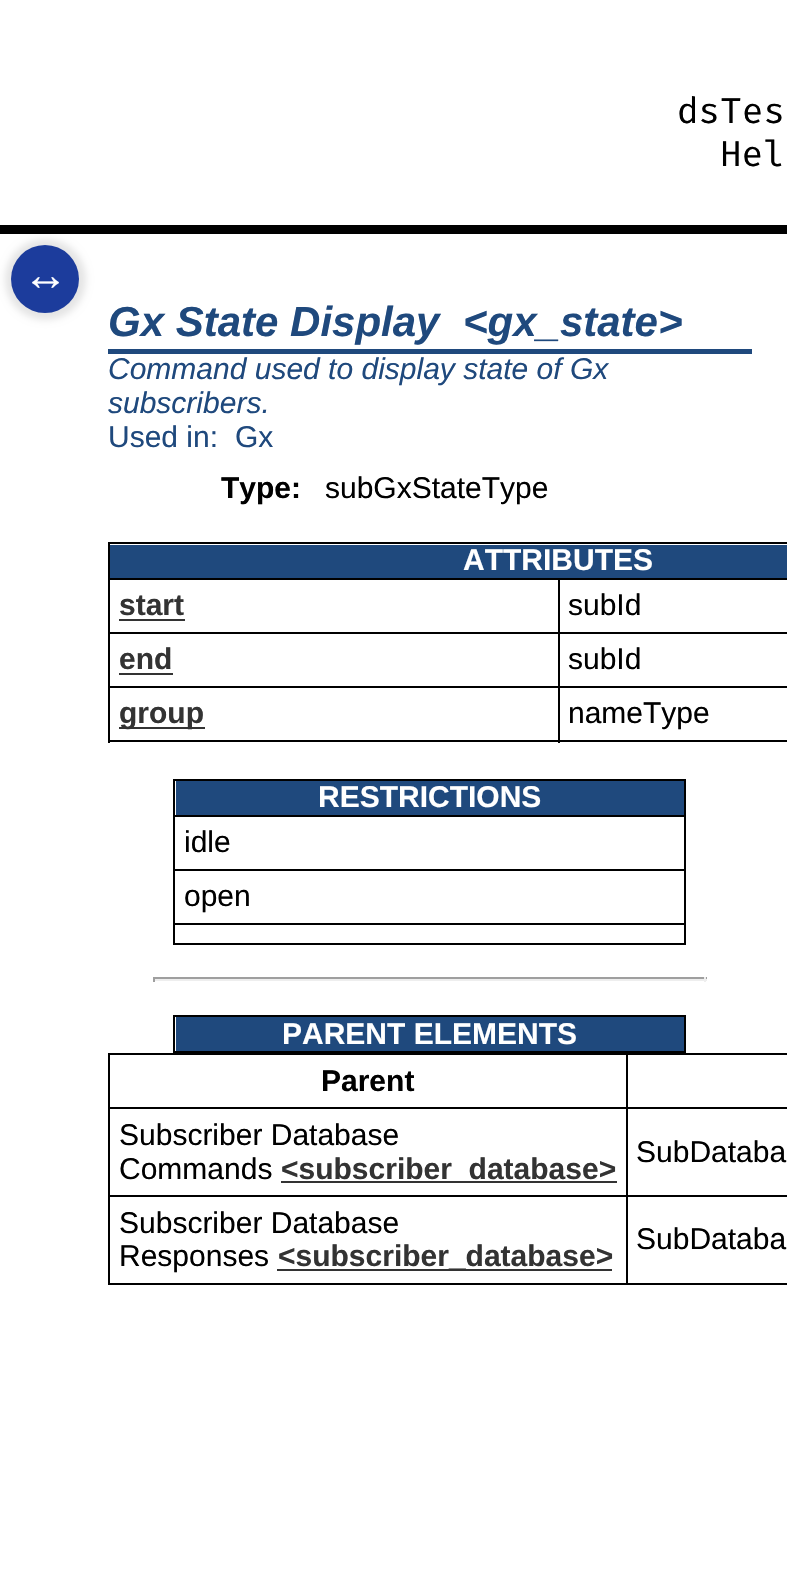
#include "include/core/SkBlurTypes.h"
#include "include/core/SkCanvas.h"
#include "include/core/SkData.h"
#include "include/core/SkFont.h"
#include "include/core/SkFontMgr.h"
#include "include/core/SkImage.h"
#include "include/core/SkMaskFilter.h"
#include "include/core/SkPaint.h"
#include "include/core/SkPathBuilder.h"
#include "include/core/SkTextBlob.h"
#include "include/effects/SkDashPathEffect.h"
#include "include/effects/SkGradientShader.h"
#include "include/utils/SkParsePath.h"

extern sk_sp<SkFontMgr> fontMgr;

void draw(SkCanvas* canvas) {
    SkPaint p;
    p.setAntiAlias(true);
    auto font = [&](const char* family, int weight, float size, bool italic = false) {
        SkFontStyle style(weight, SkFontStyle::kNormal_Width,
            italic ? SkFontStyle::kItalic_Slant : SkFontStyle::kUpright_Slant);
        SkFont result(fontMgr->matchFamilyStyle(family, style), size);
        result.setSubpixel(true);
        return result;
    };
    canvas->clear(0xFFFFFFFF);
    p.setColor(0x1A000000);
    p.setMaskFilter(SkMaskFilter::MakeBlur(kNormal_SkBlurStyle, 3.5f));
    canvas->drawRoundRect(SkRect::MakeLTRB(5, 239, 86, 320), 40.5f, 40.5f, p);
    p.setMaskFilter(nullptr);
    p.setColor(0xFF000000);
    canvas->drawRect(SkRect::MakeLTRB(0, 225, 787, 234), p);
    auto font1 = font("Fira Mono", 400, 36);
    canvas->drawString("dsTes", 677, 123, font1, p);
    canvas->drawString("Hel", 720, 166, font1, p);
    p.setColor(0xFF1C3C9C);
    canvas->drawCircle(45, 279, 34, p);
    auto font2 = font("Liberation Serif", 400, 45);
    p.setColor(0xFFFFFFFF);
    canvas->drawString("↔", 23, 290, font2, p);
    p.setColor(0xFF1F497D);
    canvas->drawRect(SkRect::MakeLTRB(108, 349, 752, 354), p);
    auto font3 = font("Liberation Sans", 700, 42, true);
    canvas->drawString("Gx State Display", 108, 336, font3, p);
    canvas->drawString("<gx_state>", 463, 336, font3, p);
    auto font4 = font("Liberation Sans", 400, 30, true);
    canvas->drawString("Command used to display state of Gx", 108, 379, font4, p);
    canvas->drawString("subscribers.", 108, 413, font4, p);
    auto font5 = font("Liberation Sans", 400, 30);
    canvas->drawString("Used in:", 108, 447, font5, p);
    canvas->drawString("Gx", 235, 447, font5, p);
    auto font6 = font("Liberation Sans", 700, 30);
    p.setColor(0xFF000000);
    canvas->drawString("Type:", 221, 498, font6, p);
    canvas->drawString("subGxStateType", 325, 498, font5, p);
    {
        const struct { float l, t, r, b; SkColor color; } items[] = {
            {108, 542, 787, 544, 0xFF000000},
            {558, 578, 787, 580, 0xFF000000},
            {558, 632, 787, 634, 0xFF000000},
            {558, 686, 787, 688, 0xFF000000},
            {558, 740, 787, 742, 0xFF000000},
            {558, 686, 560, 743, 0xFF000000},
            {108, 686, 560, 688, 0xFF000000},
            {558, 632, 560, 689, 0xFF000000},
            {108, 632, 560, 634, 0xFF000000},
            {558, 578, 560, 635, 0xFF000000},
            {108, 578, 560, 580, 0xFF000000},
            {108, 740, 560, 742, 0xFF000000},
            {108, 686, 110, 743, 0xFF000000},
            {108, 632, 110, 689, 0xFF000000},
            {108, 578, 110, 635, 0xFF000000},
            {108, 542, 110, 581, 0xFF000000},
            {110, 545, 787, 578, 0xFF1F497D},
        };
        for (auto [l, t, r, b, color] : items) {
            p.setColor(color);
            canvas->drawRect(SkRect::MakeLTRB(l, t, r, b), p);
        }
    }
    p.setColor(0xFFFFFFFF);
    canvas->drawString("ATTRIBUTES", 463, 570, font6, p);
    p.setColor(0xFF333333);
    canvas->drawString("start", 119, 615, font6, p);
    canvas->drawRect(SkRect::MakeLTRB(119, 619, 185, 621), p);
    p.setColor(0xFF000000);
    canvas->drawString("subId", 568, 615, font5, p);
    p.setColor(0xFF333333);
    canvas->drawString("end", 119, 669, font6, p);
    canvas->drawRect(SkRect::MakeLTRB(119, 673, 173, 675), p);
    p.setColor(0xFF000000);
    canvas->drawString("subId", 568, 669, font5, p);
    p.setColor(0xFF333333);
    canvas->drawRect(SkRect::MakeLTRB(119, 727, 205, 729), p);
    canvas->drawString("group", 119, 723, font6, p);
    p.setColor(0xFF000000);
    canvas->drawString("nameType", 568, 723, font5, p);
    {
        const struct { float l, t, r, b; SkColor color; } items[] = {
            {173, 779, 686, 781, 0xFF000000},
            {173, 815, 686, 817, 0xFF000000},
            {173, 869, 686, 871, 0xFF000000},
            {173, 923, 686, 925, 0xFF000000},
            {684, 923, 686, 945, 0xFF000000},
            {684, 869, 686, 925, 0xFF000000},
            {684, 815, 686, 871, 0xFF000000},
            {684, 779, 686, 817, 0xFF000000},
            {173, 943, 686, 945, 0xFF000000},
            {173, 923, 175, 945, 0xFF000000},
            {173, 869, 175, 925, 0xFF000000},
            {173, 815, 175, 871, 0xFF000000},
            {173, 779, 175, 817, 0xFF000000},
            {176, 781, 684, 815, 0xFF1F497D},
        };
        for (auto [l, t, r, b, color] : items) {
            p.setColor(color);
            canvas->drawRect(SkRect::MakeLTRB(l, t, r, b), p);
        }
    }
    p.setColor(0xFFFFFFFF);
    canvas->drawString("RESTRICTIONS", 318, 807, font6, p);
    p.setColor(0xFF000000);
    canvas->drawString("idle", 184, 852, font5, p);
    canvas->drawString("open", 184, 906, font5, p);
    {
        const struct { float l, t, r, b; SkColor color; } items[] = {
            {153, 977, 707, 979, 0xFF9F9F9F},
            {704, 977, 706, 982, 0xFFEEEEEE},
            {153, 979, 707, 981, 0xFFEEEEEE},
            {153, 977, 155, 982, 0xFF9F9F9F},
            {173, 1015, 686, 1017, 0xFF000000},
            {684, 1015, 686, 1053, 0xFF000000},
            {173, 1051, 686, 1053, 0xFF000000},
            {173, 1015, 175, 1053, 0xFF000000},
            {176, 1017, 684, 1051, 0xFF1F497D},
        };
        for (auto [l, t, r, b, color] : items) {
            p.setColor(color);
            canvas->drawRect(SkRect::MakeLTRB(l, t, r, b), p);
        }
    }
    p.setColor(0xFFFFFFFF);
    canvas->drawString("PARENT ELEMENTS", 282, 1044, font6, p);
    {
        const struct { float l, t, r, b; SkColor color; } items[] = {
            {626, 1053, 787, 1055, 0xFF000000},
            {626, 1107, 787, 1109, 0xFF000000},
            {626, 1195, 787, 1197, 0xFF000000},
            {626, 1283, 787, 1285, 0xFF000000},
            {626, 1195, 628, 1285, 0xFF000000},
            {108, 1195, 628, 1197, 0xFF000000},
            {626, 1107, 628, 1197, 0xFF000000},
            {108, 1107, 628, 1109, 0xFF000000},
            {626, 1053, 628, 1109, 0xFF000000},
            {108, 1053, 628, 1055, 0xFF000000},
            {108, 1283, 628, 1285, 0xFF000000},
            {108, 1195, 110, 1285, 0xFF000000},
            {108, 1107, 110, 1197, 0xFF000000},
            {108, 1053, 110, 1109, 0xFF000000},
        };
        for (auto [l, t, r, b, color] : items) {
            p.setColor(color);
            canvas->drawRect(SkRect::MakeLTRB(l, t, r, b), p);
        }
    }
    canvas->drawString("Parent", 321, 1091, font6, p);
    canvas->drawString("Subscriber Database", 119, 1145, font5, p);
    canvas->drawString("Commands", 119, 1179, font5, p);
    p.setColor(0xFF333333);
    canvas->drawRect(SkRect::MakeLTRB(281, 1181, 617, 1183), p);
    canvas->drawString("<subscriber_database>", 281, 1179, font6, p);
    p.setColor(0xFF000000);
    {
        const struct { const char* s; float x, y; } items[] = {
            {"SubDataba", 636, 1162},
            {"Subscriber Database", 119, 1233},
            {"Responses", 119, 1266},
        };
        for (auto [s, x, y] : items) {
            canvas->drawString(s, x, y, font5, p);
        }
    }
    p.setColor(0xFF333333);
    canvas->drawRect(SkRect::MakeLTRB(277, 1269, 612, 1271), p);
    canvas->drawString("<subscriber_database>", 278, 1266, font6, p);
    p.setColor(0xFF000000);
    canvas->drawString("SubDataba", 636, 1249, font5, p);
}
